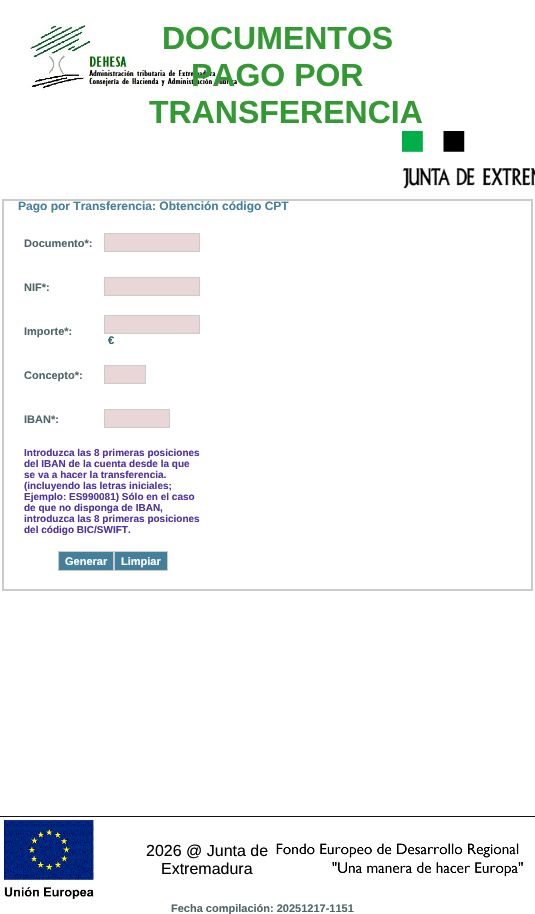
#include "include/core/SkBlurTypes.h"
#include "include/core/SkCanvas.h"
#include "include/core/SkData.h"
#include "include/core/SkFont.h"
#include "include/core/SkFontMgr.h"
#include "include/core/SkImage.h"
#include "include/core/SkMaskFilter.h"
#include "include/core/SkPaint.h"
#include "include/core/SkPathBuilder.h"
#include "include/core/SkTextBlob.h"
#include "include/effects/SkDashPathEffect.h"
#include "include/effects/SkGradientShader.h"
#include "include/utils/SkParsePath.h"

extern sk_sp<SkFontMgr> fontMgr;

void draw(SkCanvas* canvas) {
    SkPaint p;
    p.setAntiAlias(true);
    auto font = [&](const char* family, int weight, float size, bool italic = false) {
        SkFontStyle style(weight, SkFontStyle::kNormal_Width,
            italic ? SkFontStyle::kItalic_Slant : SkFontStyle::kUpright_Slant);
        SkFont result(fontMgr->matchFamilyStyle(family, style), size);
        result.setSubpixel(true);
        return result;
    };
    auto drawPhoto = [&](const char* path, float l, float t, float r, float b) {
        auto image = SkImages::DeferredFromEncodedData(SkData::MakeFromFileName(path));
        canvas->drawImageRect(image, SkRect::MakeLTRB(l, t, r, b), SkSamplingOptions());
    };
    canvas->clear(0xFFFFFFFF);
    drawPhoto("media/1.png", 28, 20, 240, 90);
    auto font1 = font("Liberation Sans", 700, 32);
    p.setColor(0xFF339933);
    {
        const struct { const char* s; float x, y; } items[] = {
            {"DOCUMENTOS", 162, 49},
            {"PAGO POR", 191, 86},
            {"TRANSFERENCIA", 149, 123},
        };
        for (auto [s, x, y] : items) {
            canvas->drawString(s, x, y, font1, p);
        }
    }
    drawPhoto("media/2.png", 402, 131, 535, 189);
    p.setStyle(SkPaint::kStroke_Style);
    p.setStrokeWidth(2);
    p.setColor(0xFFCBCBCB);
    canvas->drawRect(SkRect::MakeLTRB(3, 200, 532, 590), p);
    auto font2 = font("Liberation Sans", 700, 12);
    p.setStyle(SkPaint::kFill_Style);
    p.setColor(0xFF447F9C);
    canvas->drawString("Pago por Transferencia: Obtención código CPT", 18, 210, font2, p);
    auto font3 = font("Liberation Sans", 700, 11);
    p.setColor(0xFF506668);
    canvas->drawString("Documento*:", 24, 247, font3, p);
    p.setColor(0xFFE9D7D7);
    canvas->drawRect(SkRect::MakeLTRB(104.5f, 233.5f, 199.5f, 251.5f), p);
    p.setStyle(SkPaint::kStroke_Style);
    p.setStrokeWidth(1);
    p.setColor(0xFFCBCBCB);
    canvas->drawRect(SkRect::MakeLTRB(104.5f, 233.5f, 199.5f, 251.5f), p);
    p.setStyle(SkPaint::kFill_Style);
    p.setColor(0xFF506668);
    canvas->drawString("NIF*:", 24, 291, font3, p);
    p.setColor(0xFFE9D7D7);
    canvas->drawRect(SkRect::MakeLTRB(104.5f, 277.5f, 199.5f, 295.5f), p);
    p.setStyle(SkPaint::kStroke_Style);
    p.setColor(0xFFCBCBCB);
    canvas->drawRect(SkRect::MakeLTRB(104.5f, 277.5f, 199.5f, 295.5f), p);
    p.setStyle(SkPaint::kFill_Style);
    p.setColor(0xFF506668);
    canvas->drawString("Importe*:", 24, 335, font3, p);
    p.setColor(0xFFE9D7D7);
    canvas->drawRect(SkRect::MakeLTRB(104.5f, 315.5f, 199.5f, 333.5f), p);
    p.setStyle(SkPaint::kStroke_Style);
    p.setColor(0xFFCBCBCB);
    canvas->drawRect(SkRect::MakeLTRB(104.5f, 315.5f, 199.5f, 333.5f), p);
    p.setStyle(SkPaint::kFill_Style);
    p.setColor(0xFF336666);
    canvas->drawString("€", 108, 344, font3, p);
    p.setColor(0xFF506668);
    canvas->drawString("Concepto*:", 24, 379, font3, p);
    p.setColor(0xFFE9D7D7);
    canvas->drawRect(SkRect::MakeLTRB(104.5f, 365.5f, 145.5f, 383.5f), p);
    p.setStyle(SkPaint::kStroke_Style);
    p.setColor(0xFFCBCBCB);
    canvas->drawRect(SkRect::MakeLTRB(104.5f, 365.5f, 145.5f, 383.5f), p);
    p.setStyle(SkPaint::kFill_Style);
    p.setColor(0xFF506668);
    canvas->drawString("IBAN*:", 24, 423, font3, p);
    p.setColor(0xFFE9D7D7);
    canvas->drawRect(SkRect::MakeLTRB(104.5f, 409.5f, 169.5f, 427.5f), p);
    p.setStyle(SkPaint::kStroke_Style);
    p.setColor(0xFFCBCBCB);
    canvas->drawRect(SkRect::MakeLTRB(104.5f, 409.5f, 169.5f, 427.5f), p);
    auto font4 = font("Liberation Sans", 700, 10);
    p.setStyle(SkPaint::kFill_Style);
    p.setColor(0xFF5133A4);
    {
        const struct { const char* s; float x, y; } items[] = {
            {"Introduzca las 8 primeras posiciones", 24, 456},
            {"del IBAN de la cuenta desde la que", 24, 467},
            {"se va a hacer la transferencia.", 24, 478},
            {"(incluyendo las letras iniciales;", 24, 489},
            {"Ejemplo: ES990081) Sólo en el caso", 24, 500},
            {"de que no disponga de IBAN,", 24, 511},
            {"introduzca las 8 primeras posiciones", 24, 522},
            {"del código BIC/SWIFT.", 24, 533},
        };
        for (auto [s, x, y] : items) {
            canvas->drawString(s, x, y, font4, p);
        }
    }
    p.setColor(0xFF447F9C);
    canvas->drawRect(SkRect::MakeLTRB(58.5f, 551.5f, 113.5f, 570.5f), p);
    p.setStyle(SkPaint::kStroke_Style);
    p.setColor(0xFFCBCBCB);
    canvas->drawRect(SkRect::MakeLTRB(58.5f, 551.5f, 113.5f, 570.5f), p);
    p.setStyle(SkPaint::kFill_Style);
    p.setColor(0xFFFFFFFF);
    canvas->drawString("Generar", 65, 565, font3, p);
    p.setColor(0xFF447F9C);
    canvas->drawRect(SkRect::MakeLTRB(114.5f, 551.5f, 167.5f, 570.5f), p);
    p.setStyle(SkPaint::kStroke_Style);
    p.setColor(0xFFCBCBCB);
    canvas->drawRect(SkRect::MakeLTRB(114.5f, 551.5f, 167.5f, 570.5f), p);
    p.setStyle(SkPaint::kFill_Style);
    p.setColor(0xFFFFFFFF);
    canvas->drawString("Limpiar", 121, 565, font3, p);
    p.setColor(0xFF111111);
    canvas->drawRect(SkRect::MakeLTRB(0, 816, 535, 817), p);
    drawPhoto("media/3.png", 4, 820, 94, 899);
    auto font5 = font("Liberation Sans", 400, 16);
    p.setColor(0xFF000000);
    canvas->drawString("2026 @ Junta de", 146, 856, font5, p);
    canvas->drawString("Extremadura", 161, 874, font5, p);
    drawPhoto("media/4.png", 276, 843, 523, 877);
    p.setColor(0xFF506668);
    canvas->drawString("Fecha compilación: 20251217-1151", 171, 912, font3, p);
}
